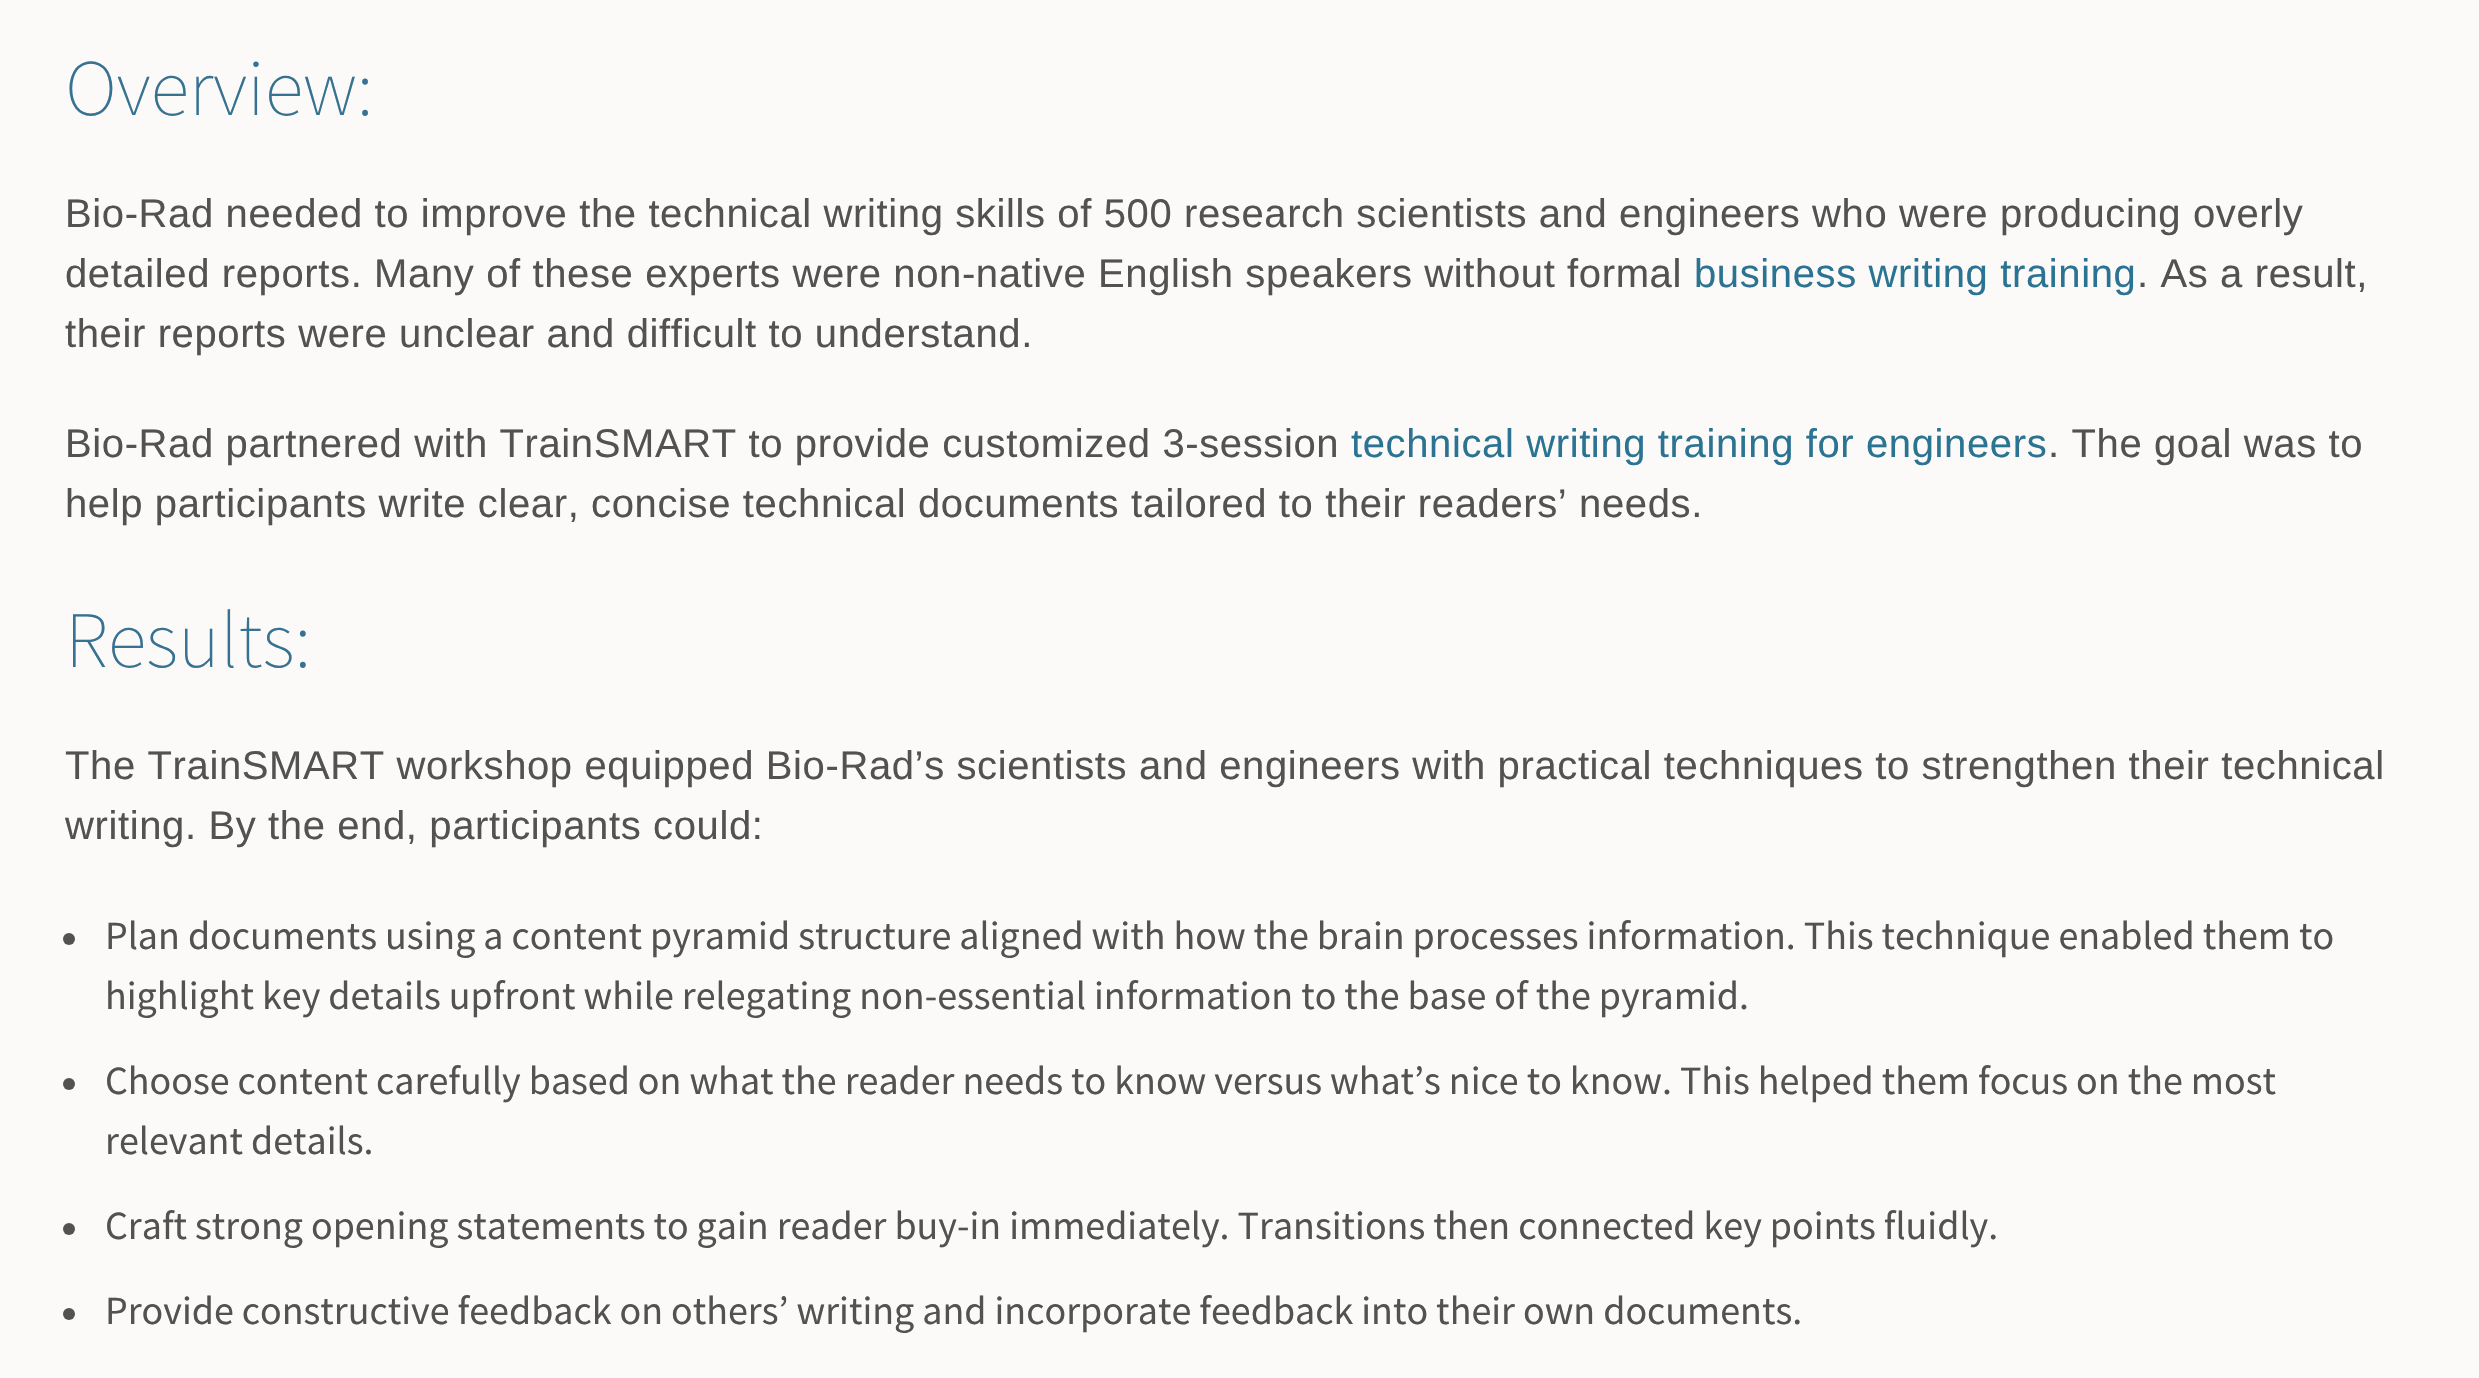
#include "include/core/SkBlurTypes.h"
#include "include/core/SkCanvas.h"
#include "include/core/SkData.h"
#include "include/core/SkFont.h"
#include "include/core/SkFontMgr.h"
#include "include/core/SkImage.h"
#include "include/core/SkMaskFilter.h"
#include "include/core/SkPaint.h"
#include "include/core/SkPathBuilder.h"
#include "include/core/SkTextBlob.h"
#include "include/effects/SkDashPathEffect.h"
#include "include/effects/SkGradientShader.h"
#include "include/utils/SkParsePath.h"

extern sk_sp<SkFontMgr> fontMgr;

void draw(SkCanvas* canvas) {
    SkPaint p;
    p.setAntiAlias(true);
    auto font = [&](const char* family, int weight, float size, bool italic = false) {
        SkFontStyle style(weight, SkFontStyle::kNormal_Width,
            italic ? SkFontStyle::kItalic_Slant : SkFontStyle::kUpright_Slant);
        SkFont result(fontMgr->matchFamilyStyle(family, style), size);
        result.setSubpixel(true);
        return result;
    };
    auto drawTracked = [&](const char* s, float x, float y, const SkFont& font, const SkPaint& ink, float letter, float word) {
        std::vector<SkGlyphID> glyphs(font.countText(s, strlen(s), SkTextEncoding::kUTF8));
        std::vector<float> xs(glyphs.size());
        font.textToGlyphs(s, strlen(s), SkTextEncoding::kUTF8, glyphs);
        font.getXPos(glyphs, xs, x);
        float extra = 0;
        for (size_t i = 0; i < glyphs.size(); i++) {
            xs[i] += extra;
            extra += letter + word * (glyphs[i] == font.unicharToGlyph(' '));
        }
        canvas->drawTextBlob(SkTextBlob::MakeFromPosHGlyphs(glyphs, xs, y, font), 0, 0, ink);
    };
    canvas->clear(0xFFFBFAF8);
    auto font1 = font("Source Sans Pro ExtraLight", 200, 80);
    p.setColor(0xFF377292);
    canvas->drawString("Overview:", 65, 115, font1, p);
    auto font2 = font("Liberation Sans", 400, 40);
    p.setColor(0xFF525251);
    drawTracked("Bio-Rad needed to improve the technical writing skills of 500 research scientists and engineers who were producing overly", 65, 227, font2, p, 0.62f, 0);
    drawTracked("detailed reports. Many of these experts were non-native English speakers without formal", 65, 287, font2, p, 0.62f, 0);
    p.setColor(0xFF2B7392);
    drawTracked("business writing training", 1694, 287, font2, p, 0.62f, 0);
    p.setColor(0xFF525251);
    {
        const struct { const char* s; float x, y; } items[] = {
            {". As a result,", 2137, 287},
            {"their reports were unclear and difficult to understand.", 65, 347},
            {"Bio-Rad partnered with TrainSMART to provide customized 3-session", 65, 457},
        };
        for (auto [s, x, y] : items) {
            drawTracked(s, x, y, font2, p, 0.62f, 0);
        }
    }
    p.setColor(0xFF2B7392);
    drawTracked("technical writing training for engineers", 1351, 457, font2, p, 0.62f, 0);
    p.setColor(0xFF525251);
    drawTracked(". The goal was to", 2048, 457, font2, p, 0.62f, 0);
    drawTracked("help participants write clear, concise technical documents tailored to their readers’ needs.", 65, 517, font2, p, 0.62f, 0);
    p.setColor(0xFF377292);
    canvas->drawString("Results:", 65, 667, font1, p);
    p.setColor(0xFF525251);
    drawTracked("The TrainSMART workshop equipped Bio-Rad’s scientists and engineers with practical techniques to strengthen their technical", 65, 779, font2, p, 0.62f, 0);
    drawTracked("writing. By the end, participants could:", 65, 839, font2, p, 0.62f, 0);
    canvas->drawCircle(69, 939, 6, p);
    auto font3 = font("Source Sans Pro", 400, 40);
    canvas->drawString("Plan documents using a content pyramid structure aligned with how the brain processes information. This technique enabled them to", 105, 949, font3, p);
    canvas->drawString("highlight key details upfront while relegating non-essential information to the base of the pyramid.", 105, 1009, font3, p);
    canvas->drawCircle(69, 1084, 6, p);
    canvas->drawString("Choose content carefully based on what the reader needs to know versus what’s nice to know. This helped them focus on the most", 105, 1094, font3, p);
    canvas->drawString("relevant details.", 105, 1154, font3, p);
    canvas->drawCircle(69, 1229, 6, p);
    canvas->drawString("Craft strong opening statements to gain reader buy-in immediately. Transitions then connected key points fluidly.", 105, 1239, font3, p);
    canvas->drawCircle(69, 1314, 6, p);
    canvas->drawString("Provide constructive feedback on others’ writing and incorporate feedback into their own documents.", 105, 1324, font3, p);
}
